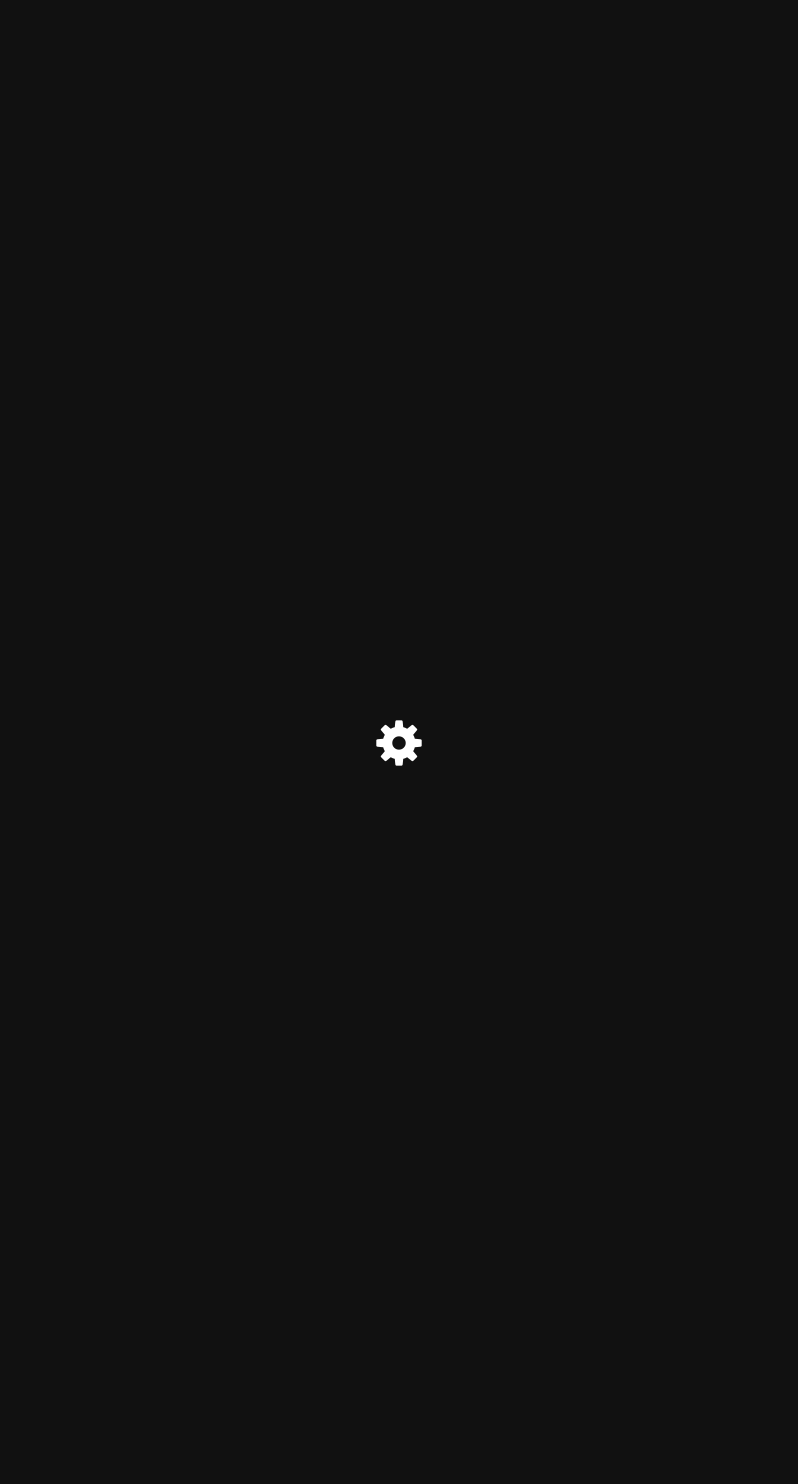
#include "include/core/SkBlurTypes.h"
#include "include/core/SkCanvas.h"
#include "include/core/SkData.h"
#include "include/core/SkFont.h"
#include "include/core/SkFontMgr.h"
#include "include/core/SkImage.h"
#include "include/core/SkMaskFilter.h"
#include "include/core/SkPaint.h"
#include "include/core/SkPathBuilder.h"
#include "include/core/SkTextBlob.h"
#include "include/effects/SkDashPathEffect.h"
#include "include/effects/SkGradientShader.h"
#include "include/utils/SkParsePath.h"

extern sk_sp<SkFontMgr> fontMgr;

void draw(SkCanvas* canvas) {
    SkPaint p;
    p.setAntiAlias(true);
    auto drawPhoto = [&](const char* path, float l, float t, float r, float b) {
        auto image = SkImages::DeferredFromEncodedData(SkData::MakeFromFileName(path));
        canvas->drawImageRect(image, SkRect::MakeLTRB(l, t, r, b), SkSamplingOptions());
    };
    canvas->clear(0xFF111111);
    drawPhoto("media/1.png", 376, 720, 422, 766);
}
